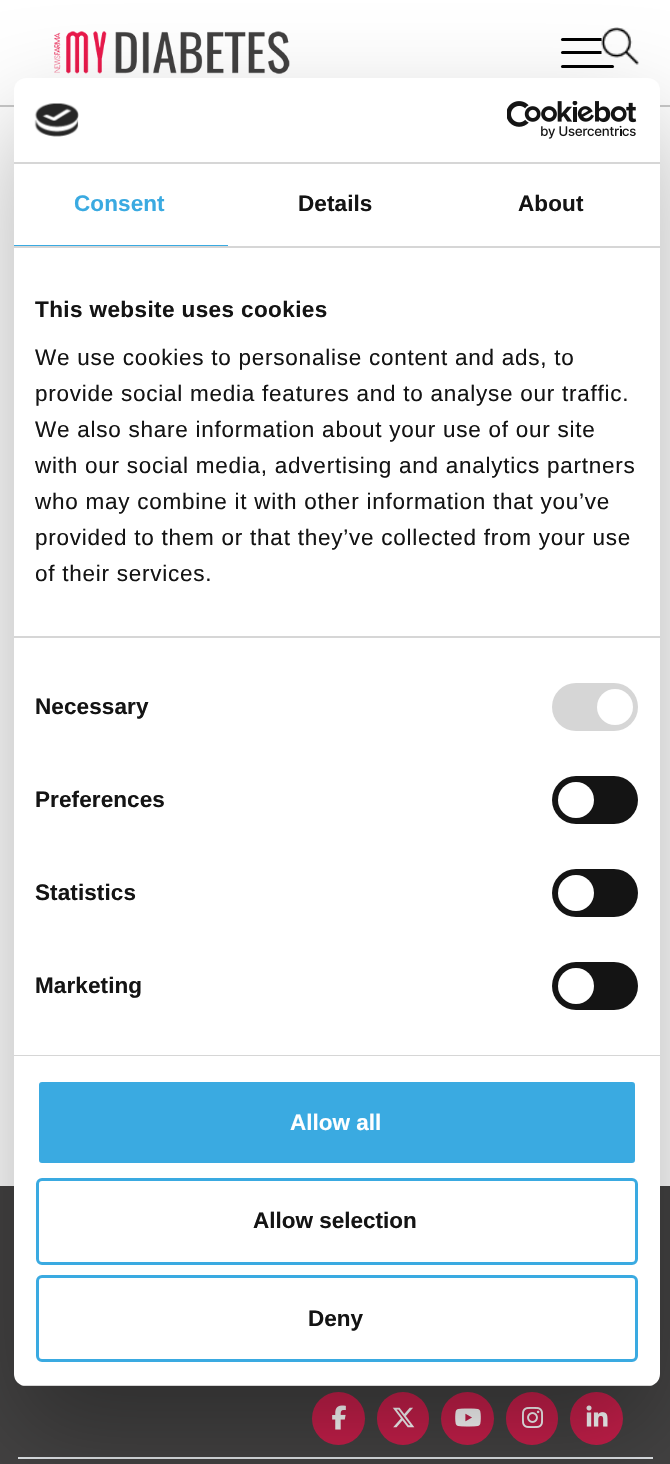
#include "include/core/SkBlurTypes.h"
#include "include/core/SkCanvas.h"
#include "include/core/SkData.h"
#include "include/core/SkFont.h"
#include "include/core/SkFontMgr.h"
#include "include/core/SkImage.h"
#include "include/core/SkMaskFilter.h"
#include "include/core/SkPaint.h"
#include "include/core/SkPathBuilder.h"
#include "include/core/SkTextBlob.h"
#include "include/effects/SkDashPathEffect.h"
#include "include/effects/SkGradientShader.h"
#include "include/utils/SkParsePath.h"

extern sk_sp<SkFontMgr> fontMgr;

void draw(SkCanvas* canvas) {
    SkPaint p;
    p.setAntiAlias(true);
    auto font = [&](const char* family, int weight, float size, bool italic = false) {
        SkFontStyle style(weight, SkFontStyle::kNormal_Width,
            italic ? SkFontStyle::kItalic_Slant : SkFontStyle::kUpright_Slant);
        SkFont result(fontMgr->matchFamilyStyle(family, style), size);
        result.setSubpixel(true);
        return result;
    };
    auto drawTracked = [&](const char* s, float x, float y, const SkFont& font, const SkPaint& ink, float letter, float word) {
        std::vector<SkGlyphID> glyphs(font.countText(s, strlen(s), SkTextEncoding::kUTF8));
        std::vector<float> xs(glyphs.size());
        font.textToGlyphs(s, strlen(s), SkTextEncoding::kUTF8, glyphs);
        font.getXPos(glyphs, xs, x);
        float extra = 0;
        for (size_t i = 0; i < glyphs.size(); i++) {
            xs[i] += extra;
            extra += letter + word * (glyphs[i] == font.unicharToGlyph(' '));
        }
        canvas->drawTextBlob(SkTextBlob::MakeFromPosHGlyphs(glyphs, xs, y, font), 0, 0, ink);
    };
    auto drawPhoto = [&](const char* path, float l, float t, float r, float b) {
        auto image = SkImages::DeferredFromEncodedData(SkData::MakeFromFileName(path));
        canvas->drawImageRect(image, SkRect::MakeLTRB(l, t, r, b), SkSamplingOptions());
    };
    canvas->clear(0xFFFFFFFF);
    p.setColor(0xFFC9C9C9);
    canvas->drawRect(SkRect::MakeLTRB(0, 105, 670, 107), p);
    drawPhoto("media/1.png", 54, 31, 290, 74);
    p.setColor(0xFF000000);
    canvas->drawRoundRect(SkRect::MakeLTRB(561, 38, 614, 41), 1.5f, 1.5f, p);
    canvas->drawRoundRect(SkRect::MakeLTRB(561, 51, 614, 54), 1.5f, 1.5f, p);
    canvas->drawRoundRect(SkRect::MakeLTRB(561, 65, 614, 68), 1.5f, 1.5f, p);
    drawPhoto("media/2.png", 601, 27, 639, 65);
    p.setColor(0xFF434242);
    canvas->drawRect(SkRect::MakeLTRB(0, 1186, 670, 1464), p);
    p.setColor(0xFFC81F4B);
    canvas->drawCircle(338.5f, 1418.5f, 26.5f, p);
    drawPhoto("media/3.png", 332, 1405, 346, 1430);
    canvas->drawRoundRect(SkRect::MakeLTRB(377, 1392, 429, 1445), 26, 26, p);
    drawPhoto("media/4.png", 392, 1407, 415, 1428);
    canvas->drawCircle(467.5f, 1418.5f, 26.5f, p);
    drawPhoto("media/5.png", 455, 1408, 481, 1427);
    canvas->drawRoundRect(SkRect::MakeLTRB(506, 1392, 558, 1445), 26, 26, p);
    drawPhoto("media/6.png", 522, 1407, 543, 1428);
    canvas->drawCircle(596.5f, 1418.5f, 26.5f, p);
    drawPhoto("media/7.png", 586, 1405, 608, 1427);
    p.setColor(0xFFDEE2E6);
    canvas->drawRect(SkRect::MakeLTRB(18, 1457, 653, 1459), p);
    p.setColor(0x4D000000);
    p.setMaskFilter(SkMaskFilter::MakeBlur(kNormal_SkBlurStyle, 51));
    canvas->drawRoundRect(SkRect::MakeLTRB(14, 126, 660, 1434), 12, 12, p);
    p.setMaskFilter(nullptr);
    p.setColor(0xFFFFFFFF);
    canvas->drawRoundRect(SkRect::MakeLTRB(14, 78, 660, 1386), 12, 12, p);
    p.setColor(0xFFD6D6D6);
    canvas->drawRect(SkRect::MakeLTRB(14, 162, 660, 164), p);
    drawPhoto("media/8.png", 34, 103, 79, 137);
    drawPhoto("media/9.png", 507, 101, 637, 139);
    canvas->drawRect(SkRect::MakeLTRB(14, 246, 660, 248), p);
    p.setColor(0xFF3AAAE1);
    canvas->drawRect(SkRect::MakeLTRB(14, 245, 228, 246), p);
    auto font1 = font("Liberation Sans", 700, 22.5f);
    drawTracked("Consent", 74, 211, font1, p, 0.1f, 0);
    p.setColor(0xFF141414);
    drawTracked("Details", 298, 211, font1, p, 0.1f, 0);
    drawTracked("About", 518, 211, font1, p, 0.1f, 0);
    p.setColor(0xFFD6D6D6);
    canvas->drawRect(SkRect::MakeLTRB(14, 636, 660, 638), p);
    p.setColor(0xFF141414);
    drawTracked("This website uses cookies", 35, 317, font1, p, 0.4f, 0);
    auto font2 = font("Liberation Sans", 400, 22.5f);
    {
        const struct { const char* s; float x, y; } items[] = {
            {"We use cookies to personalise content and ads, to", 35, 365},
            {"provide social media features and to analyse our traffic.", 35, 401},
            {"We also share information about your use of our site", 35, 437},
            {"with our social media, advertising and analytics partners", 35, 473},
            {"who may combine it with other information that you’ve", 35, 509},
            {"provided to them or that they’ve collected from your use", 35, 545},
            {"of their services.", 35, 581},
        };
        for (auto [s, x, y] : items) {
            drawTracked(s, x, y, font2, p, 0.75f, 0);
        }
    }
    p.setColor(0xFFD6D6D6);
    canvas->drawRect(SkRect::MakeLTRB(14, 1055, 660, 1056), p);
    p.setColor(0xFF141414);
    drawTracked("Necessary", 35, 714, font1, p, 0.1f, 0);
    p.setColor(0xFFD6D6D6);
    canvas->drawRoundRect(SkRect::MakeLTRB(552, 683, 638, 731), 24, 24, p);
    p.setColor(0xFFFFFFFF);
    canvas->drawCircle(615, 707, 18, p);
    p.setColor(0xFF141414);
    drawTracked("Preferences", 35, 807, font1, p, 0.1f, 0);
    canvas->drawRoundRect(SkRect::MakeLTRB(552, 776, 638, 824), 24, 24, p);
    p.setColor(0xFFFFFFFF);
    canvas->drawCircle(576, 800, 18, p);
    p.setColor(0xFF141414);
    drawTracked("Statistics", 35, 900, font1, p, 0.1f, 0);
    canvas->drawRoundRect(SkRect::MakeLTRB(552, 869, 638, 917), 24, 24, p);
    p.setColor(0xFFFFFFFF);
    canvas->drawCircle(576, 893, 18, p);
    p.setColor(0xFF141414);
    drawTracked("Marketing", 35, 993, font1, p, 0.1f, 0);
    canvas->drawRoundRect(SkRect::MakeLTRB(552, 962, 638, 1010), 24, 24, p);
    p.setColor(0xFFFFFFFF);
    canvas->drawCircle(576, 986, 18, p);
    canvas->save();
    canvas->clipPath(SkPathBuilder().moveTo(26, 78).lineTo(648, 78).cubicTo(654.5f, 78, 660, 83.5f, 660, 90).lineTo(660, 1374).cubicTo(660, 1380.5f, 654.5f, 1386, 648, 1386).lineTo(26, 1386).cubicTo(19.5f, 1386, 14, 1380.5f, 14, 1374).lineTo(14, 90).cubicTo(14, 83.5f, 19.5f, 78, 26, 78).close().detach(), true);
    p.setColor(0xFFD6D6D6);
    canvas->drawRect(SkRect::MakeLTRB(14, 1385, 660, 1386), p);
    canvas->restore();
    p.setColor(0xFF3AAAE1);
    canvas->drawRoundRect(SkRect::MakeLTRB(37.5f, 1080.5f, 636.5f, 1164.5f), 4.5f, 4.5f, p);
    p.setStyle(SkPaint::kStroke_Style);
    p.setStrokeWidth(3);
    p.setColor(0xFFFFFFFF);
    canvas->drawRoundRect(SkRect::MakeLTRB(37.5f, 1080.5f, 636.5f, 1164.5f), 4.5f, 4.5f, p);
    p.setStyle(SkPaint::kFill_Style);
    canvas->drawString("Allow all", 290, 1130, font1, p);
    p.setStyle(SkPaint::kStroke_Style);
    p.setColor(0xFF3AAAE1);
    canvas->drawRoundRect(SkRect::MakeLTRB(37.5f, 1179.5f, 636.5f, 1263.5f), 4.5f, 4.5f, p);
    p.setStyle(SkPaint::kFill_Style);
    p.setColor(0xFF141414);
    canvas->drawString("Allow selection", 253, 1228, font1, p);
    p.setStyle(SkPaint::kStroke_Style);
    p.setColor(0xFF3AAAE1);
    canvas->drawRoundRect(SkRect::MakeLTRB(37.5f, 1276.5f, 636.5f, 1360.5f), 4.5f, 4.5f, p);
    p.setStyle(SkPaint::kFill_Style);
    p.setColor(0xFF141414);
    canvas->drawString("Deny", 308, 1326, font1, p);
}
